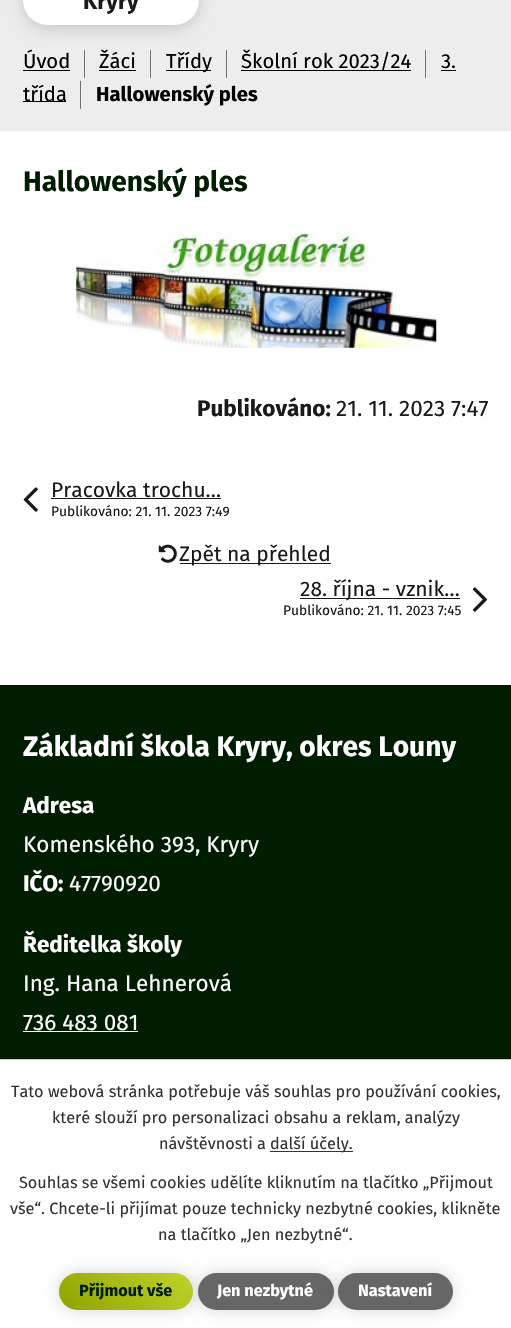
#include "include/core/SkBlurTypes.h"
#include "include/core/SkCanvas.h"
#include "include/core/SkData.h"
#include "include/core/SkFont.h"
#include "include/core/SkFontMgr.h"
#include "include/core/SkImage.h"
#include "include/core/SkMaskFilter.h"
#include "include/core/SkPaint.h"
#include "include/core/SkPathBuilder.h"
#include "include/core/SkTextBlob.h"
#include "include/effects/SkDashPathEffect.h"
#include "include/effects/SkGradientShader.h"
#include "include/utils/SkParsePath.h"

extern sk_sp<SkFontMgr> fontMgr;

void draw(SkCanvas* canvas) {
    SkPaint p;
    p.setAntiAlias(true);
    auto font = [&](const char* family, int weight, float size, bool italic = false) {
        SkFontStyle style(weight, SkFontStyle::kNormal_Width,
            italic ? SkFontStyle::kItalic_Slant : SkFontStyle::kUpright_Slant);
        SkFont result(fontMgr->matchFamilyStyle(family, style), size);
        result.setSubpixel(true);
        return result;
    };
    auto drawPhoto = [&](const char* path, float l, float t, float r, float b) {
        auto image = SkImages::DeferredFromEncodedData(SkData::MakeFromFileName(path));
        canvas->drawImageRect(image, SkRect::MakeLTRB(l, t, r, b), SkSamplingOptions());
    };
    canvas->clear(0xFFFFFFFF);
    {
        const struct { float l, t, r, b; SkColor color; } items[] = {
            {0, 0, 511, 131, 0xFFEDEDED},
            {84, 50, 85, 78, 0xFF707070},
            {150, 50, 151, 78, 0xFF707070},
        };
        for (auto [l, t, r, b, color] : items) {
            p.setColor(color);
            canvas->drawRect(SkRect::MakeLTRB(l, t, r, b), p);
        }
    }
    p.setColor(0x29000000);
    p.setMaskFilter(SkMaskFilter::MakeBlur(kNormal_SkBlurStyle, 7.5f));
    canvas->drawRoundRect(SkRect::MakeLTRB(23, -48, 199, 29), 25, 25, p);
    p.setMaskFilter(nullptr);
    p.setColor(0xFFFFFFFF);
    canvas->drawPath(SkPathBuilder().moveTo(23, -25).lineTo(199, -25).lineTo(199, 0).cubicTo(199, 14, 188, 25, 174, 25).lineTo(48, 25).cubicTo(34, 25, 23, 14, 23, 0).close().detach(), p);
    auto font1 = font("Fira Sans", 700, 22.5f);
    p.setColor(0xFF1A1A1A);
    canvas->drawString("Kryry", 83, 9, font1, p);
    auto font2 = font("Fira Sans", 400, 20.25f);
    p.setColor(0xFF000000);
    canvas->drawString("Úvod", 23, 68, font2, p);
    canvas->drawRect(SkRect::MakeLTRB(23, 70, 70, 71), p);
    canvas->drawString("Žáci", 99, 68, font2, p);
    canvas->drawRect(SkRect::MakeLTRB(99, 70, 136, 71), p);
    canvas->drawRect(SkRect::MakeLTRB(166, 70, 211, 71), p);
    canvas->drawString("Třídy", 166, 68, font2, p);
    p.setColor(0xFF707070);
    canvas->drawRect(SkRect::MakeLTRB(226, 50, 227, 78), p);
    p.setColor(0xFF000000);
    canvas->drawRect(SkRect::MakeLTRB(241, 70, 411, 71), p);
    canvas->drawString("Školní rok 2023/24", 241, 68, font2, p);
    p.setColor(0xFF707070);
    canvas->drawRect(SkRect::MakeLTRB(425, 50, 426, 78), p);
    p.setColor(0xFF000000);
    canvas->drawString("3.", 441, 68, font2, p);
    canvas->drawRect(SkRect::MakeLTRB(441, 70, 456, 71), p);
    canvas->drawRect(SkRect::MakeLTRB(23, 101, 66, 102), p);
    canvas->drawString("třída", 23, 101, font2, p);
    p.setColor(0xFF707070);
    canvas->drawRect(SkRect::MakeLTRB(80, 81, 81, 109), p);
    auto font3 = font("Fira Sans", 700, 20.25f);
    p.setColor(0xFF000000);
    canvas->drawString("Hallowenský ples", 96, 101, font3, p);
    auto font4 = font("Fira Sans", 700, 28.1f);
    p.setColor(0xFF001D01);
    canvas->drawString("Hallowenský ples", 23, 191, font4, p);
    drawPhoto("media/1.png", 76, 223, 437, 348);
    p.setColor(0xFF1A1A1A);
    canvas->drawString("Publikováno:", 197, 416, font1, p);
    auto font5 = font("Fira Sans", 400, 22.5f);
    canvas->drawString("21. 11. 2023 7:47", 336, 416, font5, p);
    drawPhoto("media/2.png", 23, 487, 38, 512);
    auto font6 = font("Fira Sans", 400, 21);
    canvas->drawString("Pracovka trochu…", 51, 497, font6, p);
    canvas->drawRect(SkRect::MakeLTRB(51, 498, 221, 499), p);
    auto font7 = font("Fira Sans", 400, 13.75f);
    canvas->drawString("Publikováno: 21. 11. 2023 7:49", 51, 516, font7, p);
    drawPhoto("media/3.png", 158, 544, 177, 563);
    canvas->drawRect(SkRect::MakeLTRB(180, 563, 331, 564), p);
    canvas->drawString("Zpět na přehled", 179, 561, font6, p);
    canvas->drawRect(SkRect::MakeLTRB(300, 598, 460, 599), p);
    canvas->drawString("28. října - vznik…", 300, 596, font6, p);
    canvas->drawString("Publikováno: 21. 11. 2023 7:45", 283, 615, font7, p);
    drawPhoto("media/4.png", 472, 587, 488, 612);
    p.setColor(0xFF001D01);
    canvas->drawRect(SkRect::MakeLTRB(0, 685, 511, 1059), p);
    p.setColor(0xFFFFFFFF);
    canvas->drawString("Základní škola Kryry, okres Louny", 23, 756, font4, p);
    canvas->drawString("Adresa", 23, 813, font1, p);
    canvas->drawString("Komenského 393, Kryry", 23, 852, font5, p);
    canvas->drawString("IČO:", 23, 891, font1, p);
    canvas->drawString("47790920", 69, 891, font5, p);
    canvas->drawString("Ředitelka školy", 23, 952, font1, p);
    canvas->drawString("Ing. Hana Lehnerová", 23, 991, font5, p);
    canvas->drawString("736 483 081", 23, 1030, font5, p);
    canvas->drawRect(SkRect::MakeLTRB(23, 1031, 138, 1032), p);
    p.setColor(0x33000000);
    p.setMaskFilter(SkMaskFilter::MakeBlur(kNormal_SkBlurStyle, 3));
    canvas->drawRect(SkRect::MakeLTRB(0, 1059, 511, 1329), p);
    p.setMaskFilter(nullptr);
    p.setColor(0xFFFFFFFF);
    canvas->drawRect(SkRect::MakeLTRB(0, 1060, 511, 1328), p);
    p.setColor(0xFFCCCCCC);
    canvas->drawRect(SkRect::MakeLTRB(0, 1059, 511, 1060), p);
    auto font8 = font("Fira Sans", 400, 16.25f);
    p.setColor(0xFF333333);
    {
        const struct { const char* s; float x, y; } items[] = {
            {"Tato webová stránka potřebuje váš souhlas pro používání cookies,", 11, 1097},
            {"které slouží pro personalizaci obsahu a reklam, analýzy", 52, 1123},
            {"návštěvnosti a", 159, 1149},
        };
        for (auto [s, x, y] : items) {
            canvas->drawString(s, x, y, font8, p);
        }
    }
    canvas->drawRect(SkRect::MakeLTRB(270, 1151, 353, 1152), p);
    {
        const struct { const char* s; float x, y; } items[] = {
            {"další účely.", 270, 1149},
            {"Souhlas se všemi cookies udělíte kliknutím na tlačítko „Přijmout", 19, 1188},
            {"vše“. Chcete-li přijímat pouze technicky nezbytné cookies, klikněte", 10, 1214},
            {"na tlačítko „Jen nezbytné“.", 158, 1240},
        };
        for (auto [s, x, y] : items) {
            canvas->drawString(s, x, y, font8, p);
        }
    }
    p.setColor(0x29000000);
    p.setMaskFilter(SkMaskFilter::MakeBlur(kNormal_SkBlurStyle, 7.5f));
    canvas->drawRoundRect(SkRect::MakeLTRB(59, 1273, 193, 1310), 18.5f, 18.5f, p);
    p.setMaskFilter(nullptr);
    {
        const SkColor colors[] = {0xFF8FA200, 0xFFC1D42D};
        const float stops[] = {0, 1};
        const SkPoint ends[] = {{83, 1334}, {168, 1248}};
        p.setShader(SkGradientShader::MakeLinear(ends, colors, stops, 2, SkTileMode::kClamp));
        p.setAlpha(255);
    }
    canvas->drawRoundRect(SkRect::MakeLTRB(59, 1273, 193, 1310), 18.5f, 18.5f, p);
    auto font9 = font("Fira Sans", 700, 16.25f);
    p.setShader(nullptr);
    p.setColor(0xFF001D01);
    canvas->drawString("Přijmout vše", 79, 1296, font9, p);
    p.setColor(0x29000000);
    p.setMaskFilter(SkMaskFilter::MakeBlur(kNormal_SkBlurStyle, 7.5f));
    canvas->drawRoundRect(SkRect::MakeLTRB(198, 1273, 334, 1310), 18.5f, 18.5f, p);
    p.setMaskFilter(nullptr);
    p.setColor(0xFF666666);
    canvas->drawRoundRect(SkRect::MakeLTRB(198, 1273, 334, 1310), 18.5f, 18.5f, p);
    p.setColor(0xFFFFFFFF);
    canvas->drawString("Jen nezbytné", 217, 1296, font9, p);
    p.setColor(0x29000000);
    p.setMaskFilter(SkMaskFilter::MakeBlur(kNormal_SkBlurStyle, 7.5f));
    canvas->drawRoundRect(SkRect::MakeLTRB(338, 1273, 453, 1310), 18.5f, 18.5f, p);
    p.setMaskFilter(nullptr);
    p.setColor(0xFF666666);
    canvas->drawRoundRect(SkRect::MakeLTRB(338, 1273, 453, 1310), 18.5f, 18.5f, p);
    p.setColor(0xFFFFFFFF);
    canvas->drawString("Nastavení", 358, 1296, font9, p);
}
